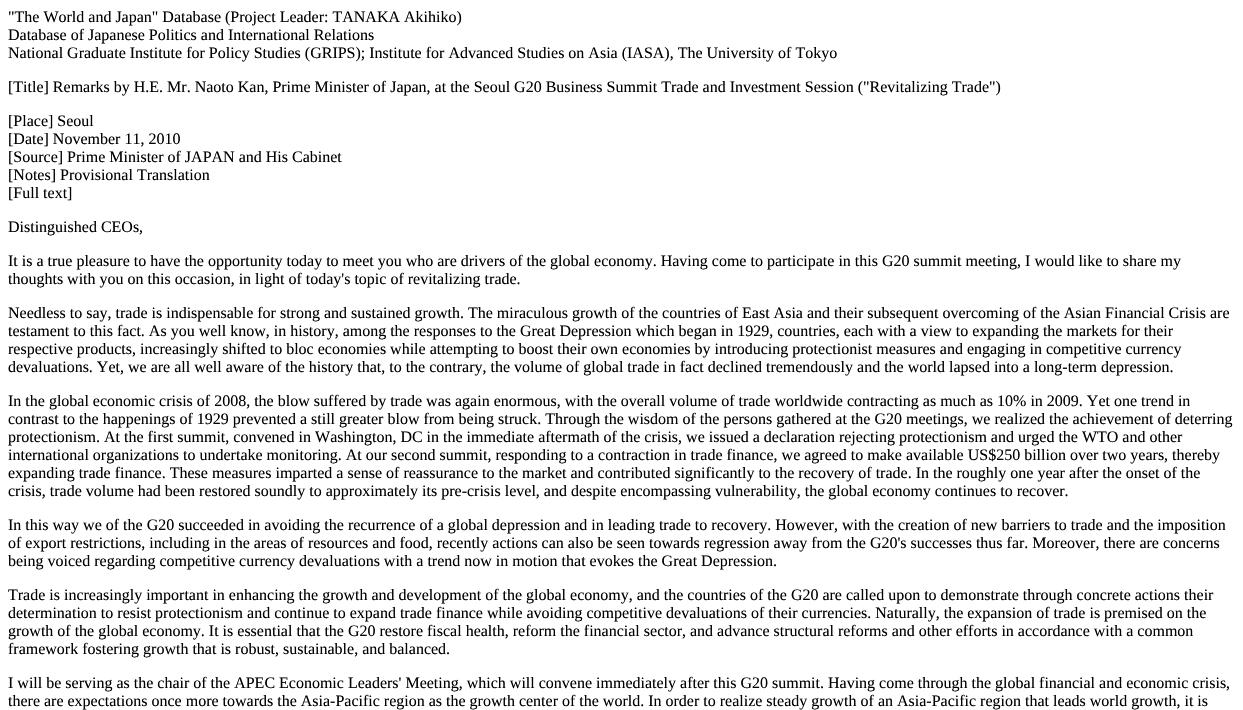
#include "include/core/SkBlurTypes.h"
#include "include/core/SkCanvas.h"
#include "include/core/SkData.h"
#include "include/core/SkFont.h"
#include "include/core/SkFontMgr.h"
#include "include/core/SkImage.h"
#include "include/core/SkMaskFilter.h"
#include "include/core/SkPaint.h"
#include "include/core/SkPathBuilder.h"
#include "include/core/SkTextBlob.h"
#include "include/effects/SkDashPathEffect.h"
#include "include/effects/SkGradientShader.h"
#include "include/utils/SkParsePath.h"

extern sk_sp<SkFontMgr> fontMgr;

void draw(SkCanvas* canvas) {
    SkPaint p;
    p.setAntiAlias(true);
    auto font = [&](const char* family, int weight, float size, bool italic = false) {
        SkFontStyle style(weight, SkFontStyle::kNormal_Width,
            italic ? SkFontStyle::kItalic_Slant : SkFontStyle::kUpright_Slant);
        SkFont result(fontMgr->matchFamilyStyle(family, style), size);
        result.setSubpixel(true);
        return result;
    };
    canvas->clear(0xFFFFFFFF);
    auto font1 = font("Liberation Serif", 400, 16);
    p.setColor(0xFF000000);
    {
        const struct { const char* s; float x, y; } items[] = {
            {"\"The World and Japan\" Database (Project Leader: TANAKA Akihiko)", 8, 22},
            {"Database of Japanese Politics and International Relations", 8, 40},
            {"National Graduate Institute for Policy Studies (GRIPS); Institute for Advanced Studies on Asia (IASA), The University of Tokyo", 8, 58},
            {"[Title] Remarks by H.E. Mr. Naoto Kan, Prime Minister of Japan, at the Seoul G20 Business Summit Trade and Investment Session (\"Revitalizing Trade\")", 8, 92},
            {"[Place] Seoul", 8, 126},
            {"[Date] November 11, 2010", 8, 144},
            {"[Source] Prime Minister of JAPAN and His Cabinet", 8, 162},
            {"[Notes] Provisional Translation", 8, 180},
            {"[Full text]", 8, 198},
            {"Distinguished CEOs,", 8, 232},
            {"It is a true pleasure to have the opportunity today to meet you who are drivers of the global economy. Having come to participate in this G20 summit meeting, I would like to share my", 8, 266},
            {"thoughts with you on this occasion, in light of today's topic of revitalizing trade.", 8, 284},
            {"Needless to say, trade is indispensable for strong and sustained growth. The miraculous growth of the countries of East Asia and their subsequent overcoming of the Asian Financial Crisis are", 8, 318},
            {"testament to this fact. As you well know, in history, among the responses to the Great Depression which began in 1929, countries, each with a view to expanding the markets for their", 8, 336},
            {"respective products, increasingly shifted to bloc economies while attempting to boost their own economies by introducing protectionist measures and engaging in competitive currency", 8, 354},
            {"devaluations. Yet, we are all well aware of the history that, to the contrary, the volume of global trade in fact declined tremendously and the world lapsed into a long-term depression.", 8, 372},
            {"In the global economic crisis of 2008, the blow suffered by trade was again enormous, with the overall volume of trade worldwide contracting as much as 10% in 2009. Yet one trend in", 8, 406},
            {"contrast to the happenings of 1929 prevented a still greater blow from being struck. Through the wisdom of the persons gathered at the G20 meetings, we realized the achievement of deterring", 8, 424},
            {"protectionism. At the first summit, convened in Washington, DC in the immediate aftermath of the crisis, we issued a declaration rejecting protectionism and urged the WTO and other", 8, 442},
            {"international organizations to undertake monitoring. At our second summit, responding to a contraction in trade finance, we agreed to make available US$250 billion over two years, thereby", 8, 460},
            {"expanding trade finance. These measures imparted a sense of reassurance to the market and contributed significantly to the recovery of trade. In the roughly one year after the onset of the", 8, 478},
            {"crisis, trade volume had been restored soundly to approximately its pre-crisis level, and despite encompassing vulnerability, the global economy continues to recover.", 8, 496},
            {"In this way we of the G20 succeeded in avoiding the recurrence of a global depression and in leading trade to recovery. However, with the creation of new barriers to trade and the imposition", 8, 530},
            {"of export restrictions, including in the areas of resources and food, recently actions can also be seen towards regression away from the G20's successes thus far. Moreover, there are concerns", 8, 548},
            {"being voiced regarding competitive currency devaluations with a trend now in motion that evokes the Great Depression.", 8, 566},
            {"Trade is increasingly important in enhancing the growth and development of the global economy, and the countries of the G20 are called upon to demonstrate through concrete actions their", 8, 600},
            {"determination to resist protectionism and continue to expand trade finance while avoiding competitive devaluations of their currencies. Naturally, the expansion of trade is premised on the", 8, 618},
            {"growth of the global economy. It is essential that the G20 restore fiscal health, reform the financial sector, and advance structural reforms and other efforts in accordance with a common", 8, 636},
            {"framework fostering growth that is robust, sustainable, and balanced.", 8, 654},
            {"I will be serving as the chair of the APEC Economic Leaders' Meeting, which will convene immediately after this G20 summit. Having come through the global financial and economic crisis,", 8, 688},
            {"there are expectations once more towards the Asia-Pacific region as the growth center of the world. In order to realize steady growth of an Asia-Pacific region that leads world growth, it is", 8, 706},
        };
        for (auto [s, x, y] : items) {
            canvas->drawString(s, x, y, font1, p);
        }
    }
}
